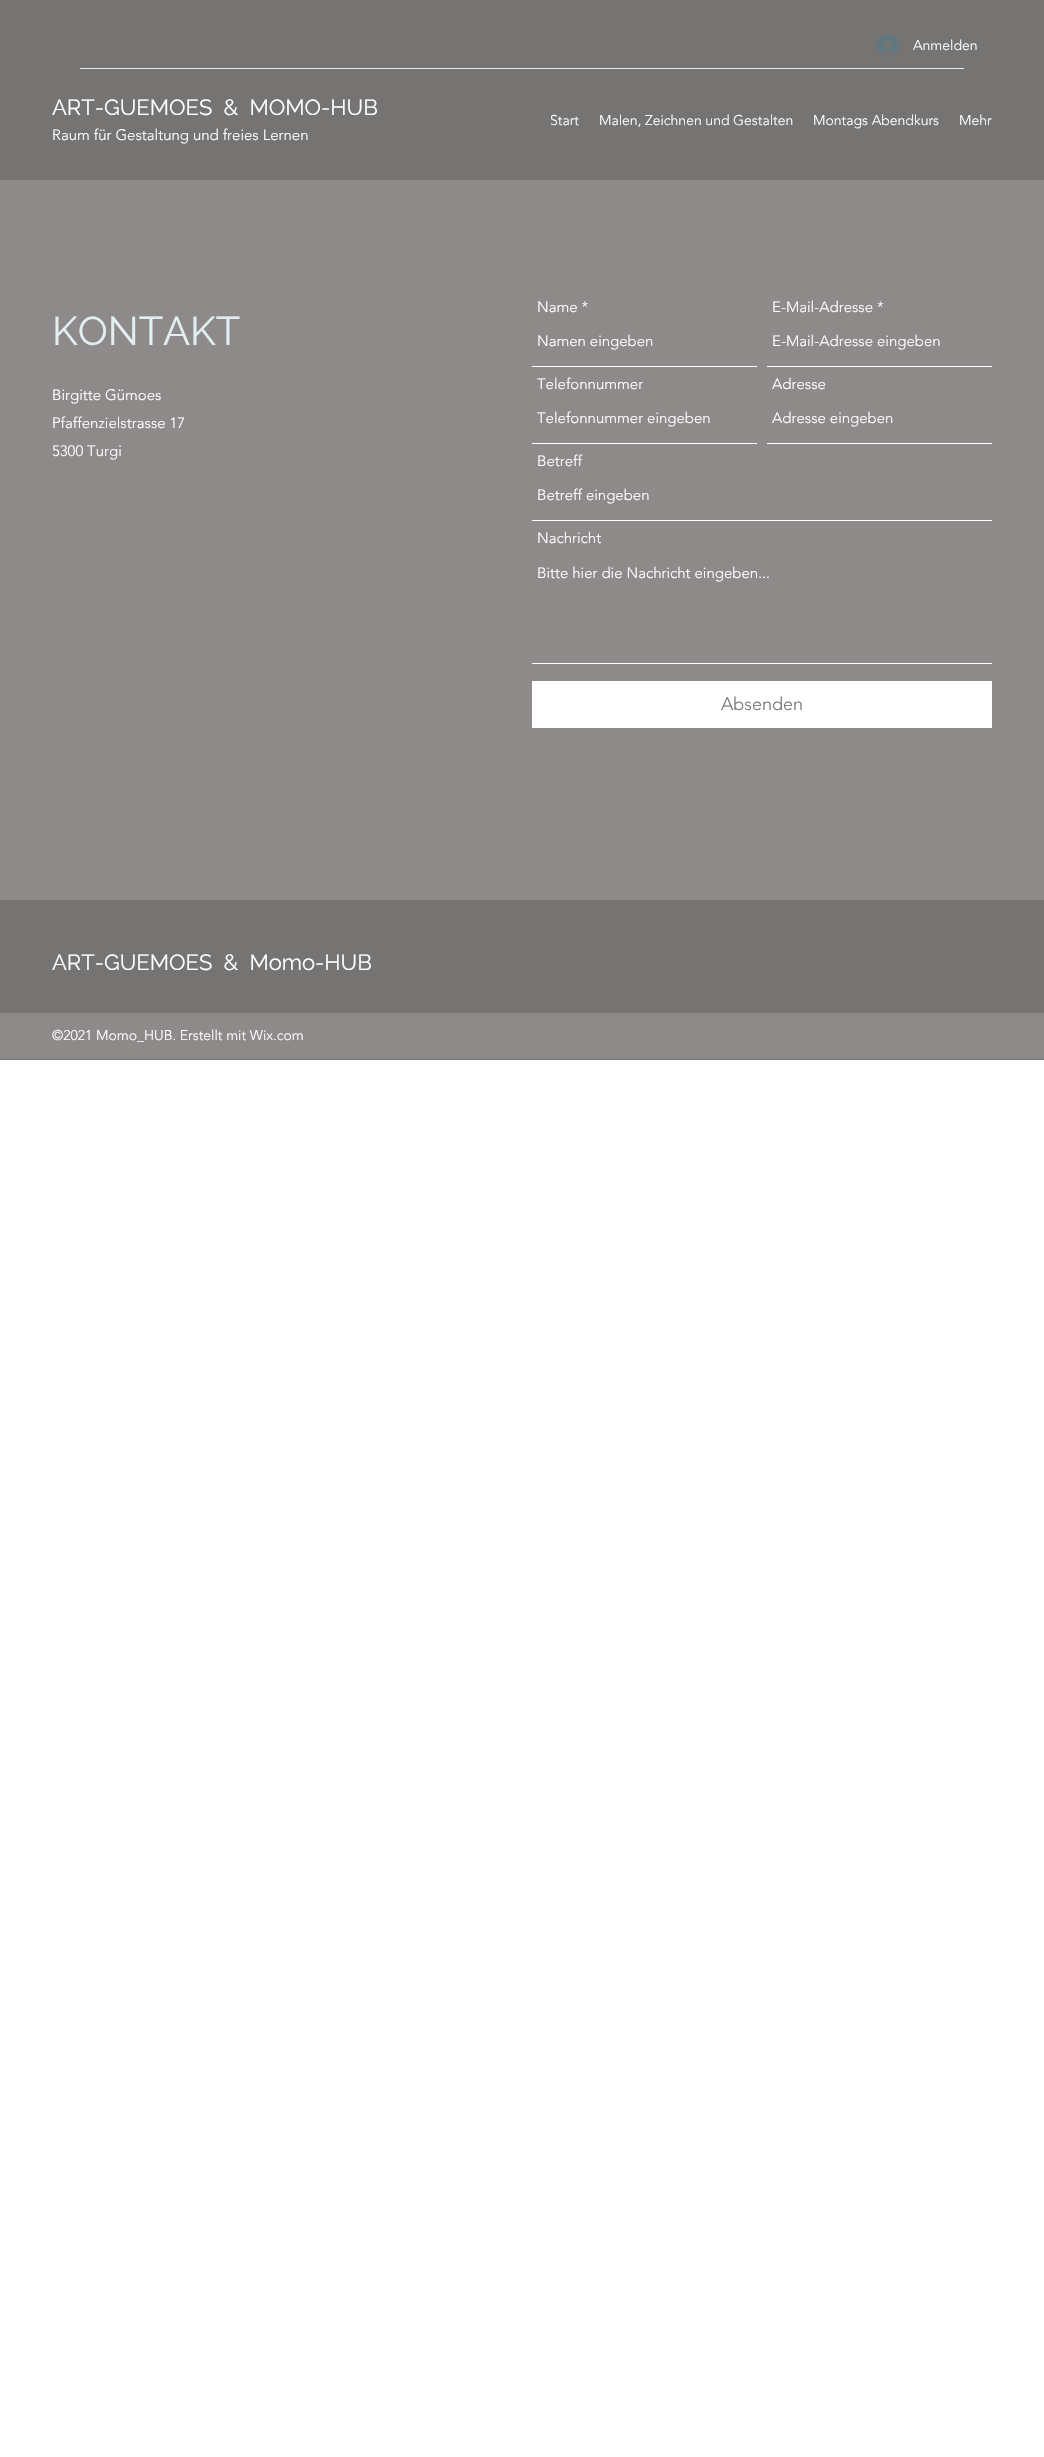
#include "include/core/SkBlurTypes.h"
#include "include/core/SkCanvas.h"
#include "include/core/SkData.h"
#include "include/core/SkFont.h"
#include "include/core/SkFontMgr.h"
#include "include/core/SkImage.h"
#include "include/core/SkMaskFilter.h"
#include "include/core/SkPaint.h"
#include "include/core/SkPathBuilder.h"
#include "include/core/SkTextBlob.h"
#include "include/effects/SkDashPathEffect.h"
#include "include/effects/SkGradientShader.h"
#include "include/utils/SkParsePath.h"

extern sk_sp<SkFontMgr> fontMgr;

void draw(SkCanvas* canvas) {
    SkPaint p;
    p.setAntiAlias(true);
    auto font = [&](const char* family, int weight, float size, bool italic = false) {
        SkFontStyle style(weight, SkFontStyle::kNormal_Width,
            italic ? SkFontStyle::kItalic_Slant : SkFontStyle::kUpright_Slant);
        SkFont result(fontMgr->matchFamilyStyle(family, style), size);
        result.setSubpixel(true);
        return result;
    };
    auto drawPhoto = [&](const char* path, float l, float t, float r, float b) {
        auto image = SkImages::DeferredFromEncodedData(SkData::MakeFromFileName(path));
        canvas->drawImageRect(image, SkRect::MakeLTRB(l, t, r, b), SkSamplingOptions());
    };
    canvas->clear(0xFFFFFFFF);
    p.setColor(0xFF767373);
    canvas->drawRect(SkRect::MakeLTRB(0, 0, 1044, 180), p);
    drawPhoto("media/1.png", 877, 35, 899, 57);
    auto font1 = font("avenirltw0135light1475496", 300, 14);
    p.setColor(0xFFFFFFFF);
    canvas->drawString("Anmelden", 913, 50, font1, p);
    p.setColor(0xFFEAEAEA);
    canvas->drawRect(SkRect::MakeLTRB(80, 68, 964, 69), p);
    auto font2 = font("Raleway", 400, 22);
    p.setColor(0xFFFFFFFF);
    canvas->drawString("ART-GUEMOES  &  MOMO-HUB", 52, 115, font2, p);
    auto font3 = font("avenirltw0135light1475496", 300, 15);
    canvas->drawString("Raum für Gestaltung und freies Lernen", 52, 140, font3, p);
    {
        const struct { const char* s; float x, y; } items[] = {
            {"Start", 550, 125},
            {"Malen, Zeichnen und Gestalten", 599, 125},
            {"Montags Abendkurs", 813, 125},
            {"Mehr", 959, 125},
        };
        for (auto [s, x, y] : items) {
            canvas->drawString(s, x, y, font1, p);
        }
    }
    p.setColor(0xFF8F8A8A);
    canvas->drawRect(SkRect::MakeLTRB(0, 180, 1044, 900), p);
    auto font4 = font("Raleway", 400, 40);
    p.setColor(0xFFE1EFF2);
    canvas->drawString("KONTAKT", 52, 345, font4, p);
    p.setColor(0xFFFFFFFF);
    canvas->drawString("Name *", 537, 312, font3, p);
    canvas->drawRect(SkRect::MakeLTRB(532, 366, 757, 367), p);
    canvas->drawString("Namen eingeben", 537, 346, font3, p);
    canvas->drawString("E-Mail-Adresse *", 772, 312, font3, p);
    canvas->drawRect(SkRect::MakeLTRB(767, 366, 992, 367), p);
    canvas->drawString("E-Mail-Adresse eingeben", 772, 346, font3, p);
    canvas->drawString("Telefonnummer", 537, 389, font3, p);
    canvas->drawRect(SkRect::MakeLTRB(532, 443, 757, 444), p);
    canvas->drawString("Telefonnummer eingeben", 537, 423, font3, p);
    canvas->drawString("Adresse", 772, 389, font3, p);
    canvas->drawRect(SkRect::MakeLTRB(767, 443, 992, 444), p);
    canvas->drawString("Adresse eingeben", 772, 423, font3, p);
    canvas->drawString("Betreff", 537, 466, font3, p);
    canvas->drawRect(SkRect::MakeLTRB(532, 520, 992, 521), p);
    canvas->drawString("Betreff eingeben", 537, 500, font3, p);
    canvas->drawString("Nachricht", 537, 543, font3, p);
    canvas->drawRect(SkRect::MakeLTRB(532, 663, 992, 664), p);
    canvas->drawString("Bitte hier die Nachricht eingeben...", 537, 578, font3, p);
    canvas->drawRect(SkRect::MakeLTRB(532, 681, 992, 728), p);
    auto font5 = font("avenirltw0135light1475496", 300, 18);
    p.setColor(0xFF767373);
    canvas->drawString("Absenden", 721, 710, font5, p);
    p.setColor(0xFFFFFFFF);
    {
        const struct { const char* s; float x, y; } items[] = {
            {"Birgitte Gümoes", 52, 400},
            {"Pfaffenzielstrasse 17", 52, 428},
            {"5300 Turgi", 52, 456},
        };
        for (auto [s, x, y] : items) {
            canvas->drawString(s, x, y, font3, p);
        }
    }
    p.setColor(0xFF767373);
    canvas->drawRect(SkRect::MakeLTRB(0, 900, 1044, 1060), p);
    p.setColor(0xFFFFFFFF);
    canvas->drawString("ART-GUEMOES  &  Momo-HUB", 52, 970, font2, p);
    p.setColor(0xFF8F8A8A);
    canvas->drawRect(SkRect::MakeLTRB(0, 1013, 1044, 1059), p);
    p.setColor(0xFFFFFFFF);
    canvas->drawString("©2021 Momo_HUB. Erstellt mit Wix.com", 52, 1040, font1, p);
}
